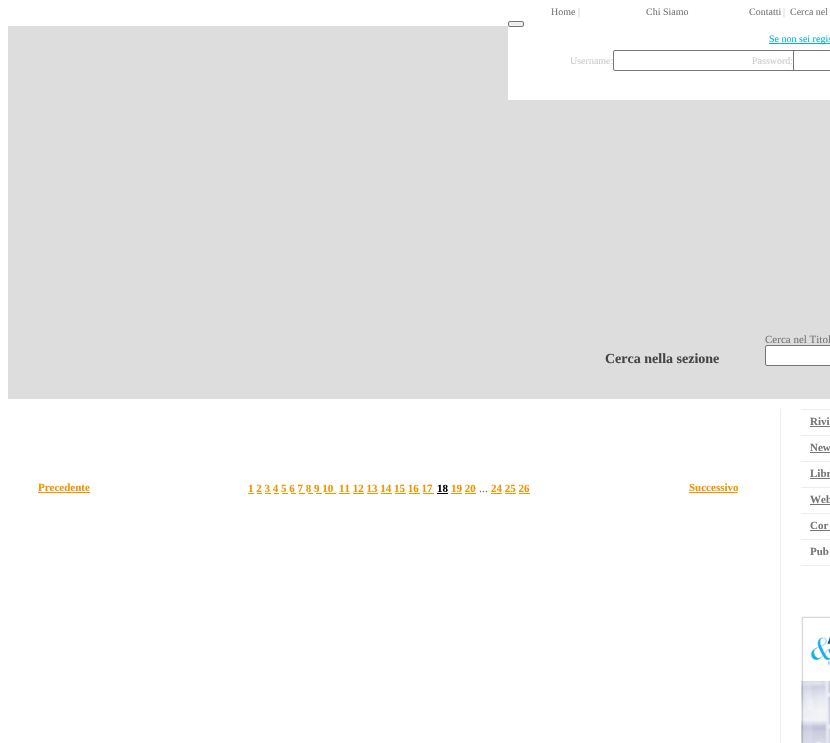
#include "include/core/SkBlurTypes.h"
#include "include/core/SkCanvas.h"
#include "include/core/SkData.h"
#include "include/core/SkFont.h"
#include "include/core/SkFontMgr.h"
#include "include/core/SkImage.h"
#include "include/core/SkMaskFilter.h"
#include "include/core/SkPaint.h"
#include "include/core/SkPathBuilder.h"
#include "include/core/SkTextBlob.h"
#include "include/effects/SkDashPathEffect.h"
#include "include/effects/SkGradientShader.h"
#include "include/utils/SkParsePath.h"

extern sk_sp<SkFontMgr> fontMgr;

void draw(SkCanvas* canvas) {
    SkPaint p;
    p.setAntiAlias(true);
    auto font = [&](const char* family, int weight, float size, bool italic = false) {
        SkFontStyle style(weight, SkFontStyle::kNormal_Width,
            italic ? SkFontStyle::kItalic_Slant : SkFontStyle::kUpright_Slant);
        SkFont result(fontMgr->matchFamilyStyle(family, style), size);
        result.setSubpixel(true);
        return result;
    };
    auto drawPhoto = [&](const char* path, float l, float t, float r, float b) {
        auto image = SkImages::DeferredFromEncodedData(SkData::MakeFromFileName(path));
        canvas->drawImageRect(image, SkRect::MakeLTRB(l, t, r, b), SkSamplingOptions());
    };
    canvas->clear(0xFFFFFFFF);
    p.setColor(0xFFDDDDDD);
    canvas->drawRect(SkRect::MakeLTRB(8, 26, 830, 399), p);
    p.setColor(0xFFFFFFFF);
    canvas->drawRect(SkRect::MakeLTRB(508, 26, 830, 100), p);
    auto font1 = font("Liberation Serif", 400, 10);
    p.setColor(0xFF767676);
    canvas->drawString("Home", 551, 15, font1, p);
    p.setColor(0xFFCCCCCC);
    canvas->drawString("|", 578, 15, font1, p);
    p.setColor(0xFF767676);
    canvas->drawString("Chi Siamo", 646, 15, font1, p);
    canvas->drawString("Contatti", 749, 15, font1, p);
    p.setColor(0xFFCCCCCC);
    canvas->drawString("|", 783, 15, font1, p);
    p.setColor(0xFF767676);
    canvas->drawString("Cerca nel", 790, 15, font1, p);
    p.setColor(0xFFEFEFEF);
    canvas->drawRoundRect(SkRect::MakeLTRB(508.5f, 21.5f, 523.5f, 26.5f), 1.5f, 1.5f, p);
    p.setStyle(SkPaint::kStroke_Style);
    p.setStrokeWidth(1);
    p.setColor(0xFF767676);
    canvas->drawRoundRect(SkRect::MakeLTRB(508.5f, 21.5f, 523.5f, 26.5f), 1.5f, 1.5f, p);
    p.setStyle(SkPaint::kFill_Style);
    p.setColor(0xFF00B1E5);
    canvas->drawRect(SkRect::MakeLTRB(769, 43, 830, 44), p);
    canvas->drawString("Se non sei regis", 769, 42, font1, p);
    p.setColor(0xFFCCCCCC);
    canvas->drawString("Username:", 570, 64, font1, p);
    p.setStyle(SkPaint::kStroke_Style);
    p.setColor(0xFF767676);
    canvas->drawRoundRect(SkRect::MakeLTRB(613.5f, 50.5f, 797.5f, 70.5f), 1.5f, 1.5f, p);
    p.setStyle(SkPaint::kFill_Style);
    p.setColor(0xFFFFFFFF);
    canvas->drawRoundRect(SkRect::MakeLTRB(793.5f, 50.5f, 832.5f, 70.5f), 1.5f, 1.5f, p);
    p.setStyle(SkPaint::kStroke_Style);
    p.setColor(0xFF767676);
    canvas->drawRoundRect(SkRect::MakeLTRB(793.5f, 50.5f, 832.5f, 70.5f), 1.5f, 1.5f, p);
    p.setStyle(SkPaint::kFill_Style);
    p.setColor(0xFFCCCCCC);
    canvas->drawString("Password:", 752, 64, font1, p);
    auto font2 = font("Liberation Serif", 400, 11);
    p.setColor(0xFF767676);
    canvas->drawString("Cerca nel Titol", 765, 343, font2, p);
    p.setColor(0xFFFFFFFF);
    canvas->drawRoundRect(SkRect::MakeLTRB(765.5f, 345.5f, 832.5f, 365.5f), 1.5f, 1.5f, p);
    p.setStyle(SkPaint::kStroke_Style);
    p.setColor(0xFF767676);
    canvas->drawRoundRect(SkRect::MakeLTRB(765.5f, 345.5f, 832.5f, 365.5f), 1.5f, 1.5f, p);
    auto font3 = font("Liberation Serif", 700, 14);
    p.setStyle(SkPaint::kFill_Style);
    p.setColor(0xFF444444);
    canvas->drawString("Cerca nella sezione", 605, 363, font3, p);
    auto font4 = font("Liberation Serif", 700, 11);
    p.setColor(0xFFF29400);
    canvas->drawString("Precedente", 38, 491, font4, p);
    canvas->drawRect(SkRect::MakeLTRB(38, 492, 90, 493), p);
    canvas->drawString("1 2 3 4 5 6 7 8 9 10", 248, 492, font4, p);
    canvas->drawString("11 12 13 14 15 16 17", 339, 492, font4, p);
    canvas->drawRect(SkRect::MakeLTRB(248, 493, 254, 494), p);
    p.setColor(0xFF000000);
    canvas->drawString("18", 437, 492, font4, p);
    canvas->drawRect(SkRect::MakeLTRB(437, 493, 448, 494), p);
    p.setColor(0xFFF29400);
    canvas->drawString("19 20", 451, 492, font4, p);
    canvas->drawRect(SkRect::MakeLTRB(451, 493, 462, 494), p);
    auto font5 = font("Liberation Serif", 400, 12);
    p.setColor(0xFF767676);
    canvas->drawString("...", 479, 492, font5, p);
    p.setColor(0xFFF29400);
    canvas->drawString("24 25 26", 491, 492, font4, p);
    canvas->drawRect(SkRect::MakeLTRB(491, 493, 502, 494), p);
    canvas->drawString("Successivo", 689, 491, font4, p);
    {
        const struct { float l, t, r, b; SkColor color; } items[] = {
            {689, 492, 738, 493, 0xFFF29400},
            {257, 493, 262, 494, 0xFFF29400},
            {265, 493, 271, 494, 0xFFF29400},
            {274, 493, 279, 494, 0xFFF29400},
            {282, 493, 288, 494, 0xFFF29400},
            {291, 493, 296, 494, 0xFFF29400},
            {299, 493, 305, 494, 0xFFF29400},
            {308, 493, 313, 494, 0xFFF29400},
            {316, 493, 322, 494, 0xFFF29400},
            {325, 493, 336, 494, 0xFFF29400},
            {339, 493, 350, 494, 0xFFF29400},
            {353, 493, 364, 494, 0xFFF29400},
            {367, 493, 378, 494, 0xFFF29400},
            {381, 493, 392, 494, 0xFFF29400},
            {395, 493, 406, 494, 0xFFF29400},
            {409, 493, 420, 494, 0xFFF29400},
            {423, 493, 434, 494, 0xFFF29400},
            {465, 493, 476, 494, 0xFFF29400},
            {505, 493, 516, 494, 0xFFF29400},
            {519, 493, 530, 494, 0xFFF29400},
            {780, 409, 781, 743, 0xFFEEEEEE},
            {801, 409, 830, 410, 0xFFEEEEEE},
            {801, 435, 830, 436, 0xFFEEEEEE},
        };
        for (auto [l, t, r, b, color] : items) {
            p.setColor(color);
            canvas->drawRect(SkRect::MakeLTRB(l, t, r, b), p);
        }
    }
    p.setColor(0xFF767676);
    canvas->drawString("Rivi", 810, 425, font4, p);
    canvas->drawRect(SkRect::MakeLTRB(810, 426, 830, 427), p);
    p.setColor(0xFFEEEEEE);
    canvas->drawRect(SkRect::MakeLTRB(801, 461, 830, 462), p);
    p.setColor(0xFF767676);
    canvas->drawString("New", 810, 451, font4, p);
    canvas->drawRect(SkRect::MakeLTRB(810, 452, 830, 453), p);
    p.setColor(0xFFEEEEEE);
    canvas->drawRect(SkRect::MakeLTRB(801, 487, 830, 488), p);
    p.setColor(0xFF767676);
    canvas->drawString("Libr", 810, 477, font4, p);
    canvas->drawRect(SkRect::MakeLTRB(810, 478, 830, 479), p);
    p.setColor(0xFFEEEEEE);
    canvas->drawRect(SkRect::MakeLTRB(801, 513, 830, 514), p);
    p.setColor(0xFF767676);
    canvas->drawString("Web", 810, 503, font4, p);
    canvas->drawRect(SkRect::MakeLTRB(810, 504, 830, 505), p);
    p.setColor(0xFFEEEEEE);
    canvas->drawRect(SkRect::MakeLTRB(801, 539, 830, 540), p);
    p.setColor(0xFF767676);
    canvas->drawString("Cor", 810, 529, font4, p);
    canvas->drawRect(SkRect::MakeLTRB(810, 530, 830, 531), p);
    p.setColor(0xFFEEEEEE);
    canvas->drawRect(SkRect::MakeLTRB(801, 565, 830, 566), p);
    p.setColor(0xFF767676);
    canvas->drawString("Pub", 810, 555, font4, p);
    drawPhoto("media/1.png", 801, 616, 830, 743);
}
